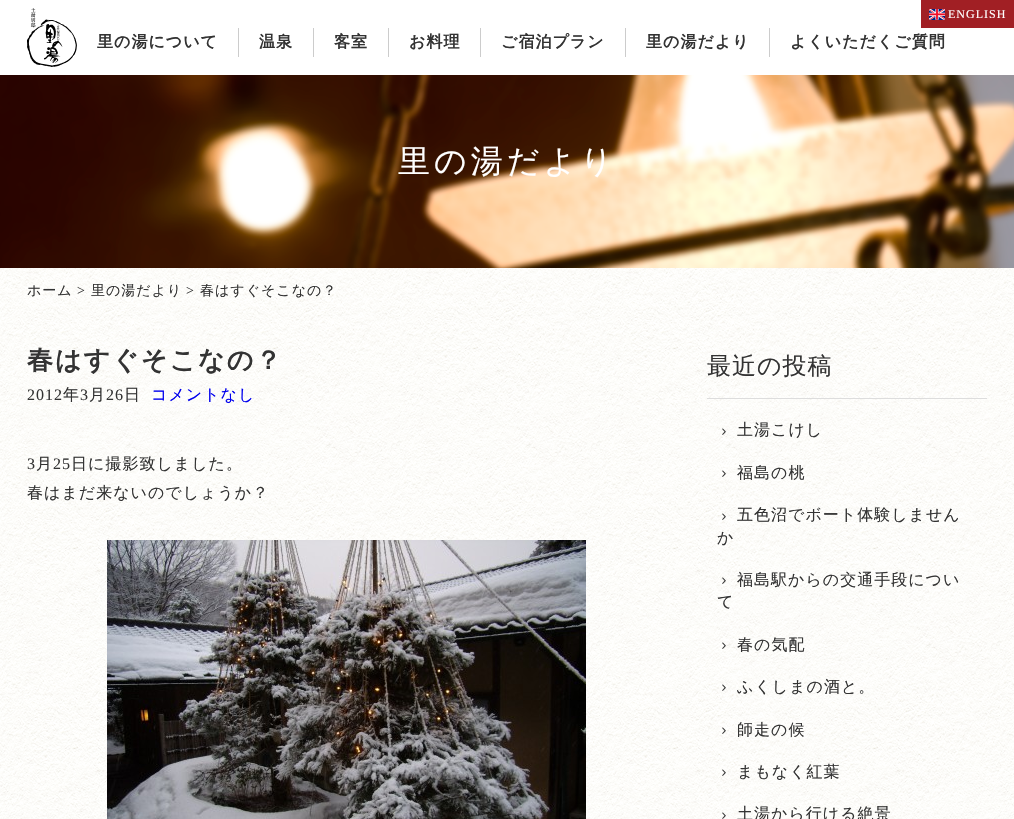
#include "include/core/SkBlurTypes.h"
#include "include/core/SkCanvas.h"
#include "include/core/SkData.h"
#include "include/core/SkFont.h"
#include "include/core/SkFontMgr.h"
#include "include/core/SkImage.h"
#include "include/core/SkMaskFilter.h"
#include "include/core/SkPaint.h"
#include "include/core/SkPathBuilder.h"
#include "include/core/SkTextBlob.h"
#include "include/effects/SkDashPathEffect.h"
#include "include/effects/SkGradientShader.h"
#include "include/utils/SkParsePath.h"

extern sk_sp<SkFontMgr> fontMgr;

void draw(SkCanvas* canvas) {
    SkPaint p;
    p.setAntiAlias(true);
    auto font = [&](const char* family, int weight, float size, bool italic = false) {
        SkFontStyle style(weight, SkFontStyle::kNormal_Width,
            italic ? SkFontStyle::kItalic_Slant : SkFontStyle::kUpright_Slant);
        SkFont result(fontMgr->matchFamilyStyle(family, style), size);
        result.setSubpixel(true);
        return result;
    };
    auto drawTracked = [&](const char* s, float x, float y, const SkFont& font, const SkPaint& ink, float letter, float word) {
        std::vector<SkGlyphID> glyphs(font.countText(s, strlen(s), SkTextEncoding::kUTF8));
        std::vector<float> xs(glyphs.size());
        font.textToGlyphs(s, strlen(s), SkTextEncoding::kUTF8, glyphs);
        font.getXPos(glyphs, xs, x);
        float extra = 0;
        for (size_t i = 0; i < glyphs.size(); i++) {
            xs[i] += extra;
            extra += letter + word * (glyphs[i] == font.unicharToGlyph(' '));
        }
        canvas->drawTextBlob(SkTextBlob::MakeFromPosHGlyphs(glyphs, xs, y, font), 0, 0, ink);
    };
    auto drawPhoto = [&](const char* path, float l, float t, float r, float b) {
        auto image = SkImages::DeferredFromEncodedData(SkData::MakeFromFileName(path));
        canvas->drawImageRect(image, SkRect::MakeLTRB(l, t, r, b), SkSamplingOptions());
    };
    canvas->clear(0xFFFFFFFF);
    drawPhoto("media/1.png", 0, 268, 1014, 819);
    p.setColor(0xFFA11F24);
    canvas->drawRect(SkRect::MakeLTRB(921, 0, 1014, 28), p);
    drawPhoto("media/2.png", 929, 9, 945, 20);
    auto font1 = font("Liberation Serif", 400, 12);
    p.setColor(0xFFFFFFFF);
    drawTracked("ENGLISH", 948, 18, font1, p, 1, 0);
    drawPhoto("media/3.png", 27, 8, 77, 67);
    p.setColor(0xFFCCCCCC);
    canvas->drawRect(SkRect::MakeLTRB(238, 28, 239, 57), p);
    auto font2 = font("WenQuanYi Zen Hei", 700, 16);
    p.setColor(0xFF333333);
    drawTracked("里の湯について", 97, 47, font2, p, 1, 0);
    p.setColor(0xFFCCCCCC);
    canvas->drawRect(SkRect::MakeLTRB(313, 28, 314, 57), p);
    p.setColor(0xFF333333);
    drawTracked("温泉", 259, 47, font2, p, 1, 0);
    p.setColor(0xFFCCCCCC);
    canvas->drawRect(SkRect::MakeLTRB(388, 28, 389, 57), p);
    p.setColor(0xFF333333);
    drawTracked("客室", 334, 47, font2, p, 1, 0);
    p.setColor(0xFFCCCCCC);
    canvas->drawRect(SkRect::MakeLTRB(480, 28, 481, 57), p);
    p.setColor(0xFF333333);
    drawTracked("お料理", 409, 47, font2, p, 1, 0);
    p.setColor(0xFFCCCCCC);
    canvas->drawRect(SkRect::MakeLTRB(625, 28, 626, 57), p);
    p.setColor(0xFF333333);
    drawTracked("ご宿泊プラン", 501, 47, font2, p, 1, 0);
    p.setColor(0xFFCCCCCC);
    canvas->drawRect(SkRect::MakeLTRB(769, 28, 770, 57), p);
    p.setColor(0xFF333333);
    drawTracked("里の湯だより", 646, 47, font2, p, 1, 0);
    drawTracked("よくいただくご質問", 790, 47, font2, p, 1, 0);
    drawPhoto("media/4.png", 0, 75, 1014, 268);
    auto font3 = font("WenQuanYi Zen Hei", 500, 32);
    p.setColor(0xFFFFFFFF);
    drawTracked("里の湯だより", 398, 172, font3, p, 4, 0);
    auto font4 = font("WenQuanYi Zen Hei", 500, 14);
    p.setColor(0xFF333333);
    drawTracked("ホーム", 27, 295, font4, p, 1, 0);
    auto font5 = font("Liberation Serif", 400, 14);
    drawTracked(">", 77, 295, font5, p, 1, 0);
    drawTracked("里の湯だより", 91, 295, font4, p, 1, 0);
    drawTracked(">", 186, 295, font5, p, 1, 0);
    drawTracked("春はすぐそこなの？", 200, 295, font4, p, 1, 0);
    auto font6 = font("WenQuanYi Zen Hei", 700, 26);
    drawTracked("春はすぐそこなの？", 27, 369, font6, p, 2, 0);
    auto font7 = font("Liberation Serif", 400, 16);
    drawTracked("2012", 27, 400, font7, p, 1, 0);
    auto font8 = font("WenQuanYi Zen Hei", 500, 16);
    drawTracked("年", 63, 400, font8, p, 1, 0);
    drawTracked("3", 80, 400, font7, p, 1, 0);
    drawTracked("月", 89, 400, font8, p, 1, 0);
    drawTracked("26", 106, 400, font7, p, 1, 0);
    drawTracked("日", 124, 400, font8, p, 1, 0);
    p.setColor(0xFF0000EE);
    drawTracked("コメントなし", 151, 400, font8, p, 1, 0);
    p.setColor(0xFF333333);
    drawTracked("3", 27, 469, font7, p, 1, 0);
    drawTracked("月", 36, 469, font8, p, 1, 0);
    drawTracked("25", 53, 469, font7, p, 1, 0);
    drawTracked("日に撮影致しました。", 71, 469, font8, p, 1, 0);
    drawTracked("春はまだ来ないのでしょうか？", 27, 498, font8, p, 1, 0);
    drawPhoto("media/5.png", 107, 540, 586, 819);
    p.setColor(0xFFDDDDDD);
    canvas->drawRect(SkRect::MakeLTRB(707, 398, 987, 399), p);
    auto font9 = font("WenQuanYi Zen Hei", 500, 24);
    p.setColor(0xFF333333);
    drawTracked("最近の投稿", 707, 374, font9, p, 1, 0);
    drawPhoto("media/6.png", 722, 428, 726, 435);
    drawTracked("土湯こけし", 737, 435, font8, p, 1, 0);
    drawPhoto("media/7.png", 722, 470, 726, 477);
    drawTracked("福島の桃", 737, 478, font8, p, 1, 0);
    drawPhoto("media/8.png", 722, 513, 726, 520);
    drawTracked("五色沼でボート体験しません", 737, 520, font8, p, 1, 0);
    drawTracked("か", 717, 543, font8, p, 1, 0);
    drawPhoto("media/9.png", 722, 577, 726, 584);
    drawTracked("福島駅からの交通手段につい", 737, 585, font8, p, 1, 0);
    drawTracked("て", 717, 607, font8, p, 1, 0);
    drawPhoto("media/10.png", 722, 642, 726, 649);
    drawTracked("春の気配", 737, 650, font8, p, 1, 0);
    drawPhoto("media/11.png", 722, 684, 726, 691);
    drawTracked("ふくしまの酒と。", 737, 692, font8, p, 1, 0);
    drawPhoto("media/12.png", 722, 727, 726, 734);
    drawTracked("師走の候", 737, 735, font8, p, 1, 0);
    drawPhoto("media/13.png", 722, 769, 726, 776);
    drawTracked("まもなく紅葉", 737, 777, font8, p, 1, 0);
    drawPhoto("media/14.png", 722, 812, 726, 819);
    drawTracked("土湯から行ける絶景", 737, 819, font8, p, 1, 0);
}
